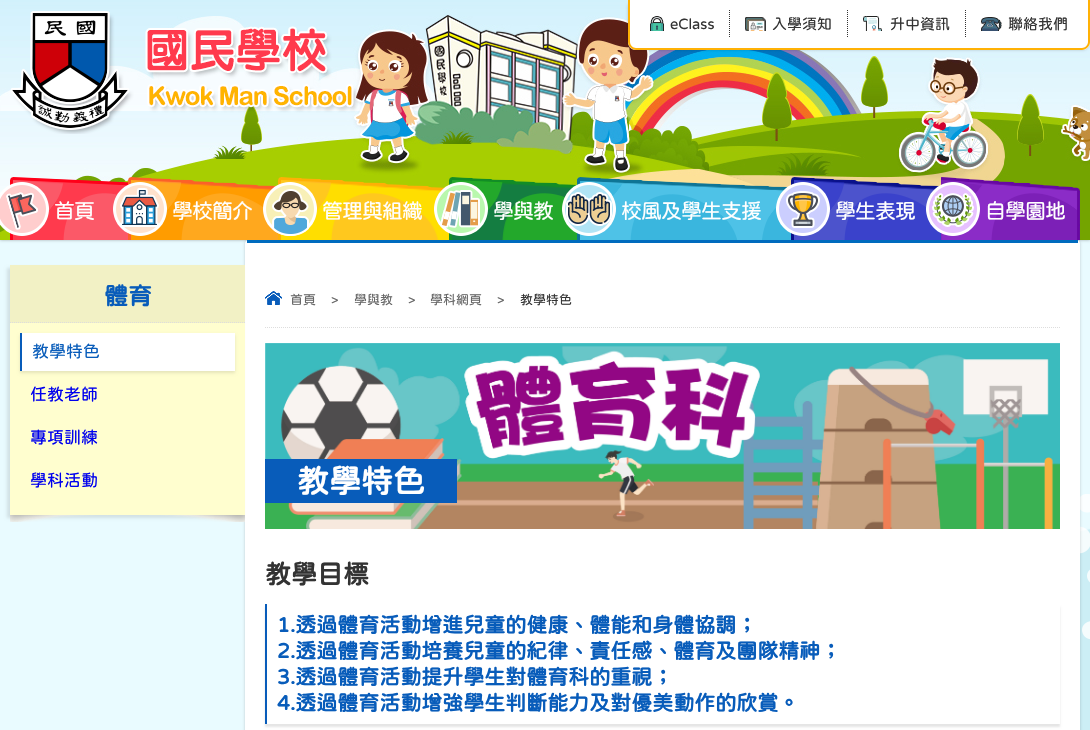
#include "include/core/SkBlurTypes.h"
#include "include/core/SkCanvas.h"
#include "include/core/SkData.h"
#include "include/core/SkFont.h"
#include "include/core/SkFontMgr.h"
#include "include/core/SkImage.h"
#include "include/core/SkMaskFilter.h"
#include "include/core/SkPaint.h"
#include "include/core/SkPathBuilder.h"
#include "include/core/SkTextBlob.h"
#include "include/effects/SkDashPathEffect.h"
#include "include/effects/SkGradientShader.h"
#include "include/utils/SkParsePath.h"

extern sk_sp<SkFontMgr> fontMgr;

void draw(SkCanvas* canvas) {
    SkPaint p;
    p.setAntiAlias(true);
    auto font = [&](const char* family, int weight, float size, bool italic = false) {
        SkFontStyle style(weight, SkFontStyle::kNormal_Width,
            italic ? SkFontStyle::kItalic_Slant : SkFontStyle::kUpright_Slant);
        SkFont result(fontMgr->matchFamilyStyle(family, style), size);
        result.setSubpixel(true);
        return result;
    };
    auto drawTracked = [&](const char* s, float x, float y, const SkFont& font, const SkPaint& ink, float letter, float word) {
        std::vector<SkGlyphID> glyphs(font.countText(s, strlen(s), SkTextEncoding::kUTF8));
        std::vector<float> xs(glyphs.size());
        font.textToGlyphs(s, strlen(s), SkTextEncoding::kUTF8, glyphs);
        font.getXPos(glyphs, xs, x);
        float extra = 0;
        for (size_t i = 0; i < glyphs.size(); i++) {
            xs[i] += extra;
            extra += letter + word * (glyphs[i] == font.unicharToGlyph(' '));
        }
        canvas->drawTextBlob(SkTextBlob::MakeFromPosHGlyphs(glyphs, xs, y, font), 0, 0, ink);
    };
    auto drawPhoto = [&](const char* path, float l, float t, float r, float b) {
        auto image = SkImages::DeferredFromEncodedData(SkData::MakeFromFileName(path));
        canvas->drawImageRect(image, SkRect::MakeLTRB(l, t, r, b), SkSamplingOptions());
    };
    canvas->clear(0xFFE9FBFF);
    p.setColor(0x4D000000);
    p.setMaskFilter(SkMaskFilter::MakeBlur(kNormal_SkBlurStyle, 1.5f));
    canvas->drawRect(SkRect::MakeLTRB(0, 0, 1090, 240), p);
    p.setMaskFilter(nullptr);
    drawPhoto("media/1.png", 0, 0, 1090, 240);
    drawPhoto("media/2.png", 10, 11, 358, 134);
    p.setColor(0x33000000);
    p.setMaskFilter(SkMaskFilter::MakeBlur(kNormal_SkBlurStyle, 1.5f));
    canvas->drawRoundRect(SkRect::MakeLTRB(628, 0, 1090, 50), 8, 8, p);
    p.setMaskFilter(nullptr);
    p.setColor(0xFFFFFFFF);
    canvas->drawPath(SkPathBuilder().moveTo(628, 0).lineTo(1090, 0).lineTo(1090, 42).cubicTo(1090, 46.5f, 1086.5f, 50, 1082, 50).lineTo(636, 50).cubicTo(631.5f, 50, 628, 46.5f, 628, 42).close().detach(), p);
    p.setColor(0xFFFFB105);
    canvas->drawPath(SkPathBuilder(SkPathFillType::kEvenOdd).moveTo(628, 0).lineTo(1090, 0).lineTo(1090, 42).cubicTo(1090, 46, 1086, 50, 1082, 50).lineTo(636, 50).cubicTo(632, 50, 628, 46, 628, 42).close().moveTo(630, 0).lineTo(1088, 0).lineTo(1088, 42).cubicTo(1088, 45, 1085, 48, 1082, 48).lineTo(636, 48).cubicTo(633, 48, 630, 45, 630, 42).close().detach(), p);
    drawPhoto("media/3.png", 650, 16, 664, 31);
    auto font1 = font("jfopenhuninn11", 400, 15);
    p.setColor(0xFF333333);
    canvas->drawString("eClass", 670, 29, font1, p);
    p.setStyle(SkPaint::kStroke_Style);
    p.setStrokeWidth(1);
    p.setPathEffect(SkDashPathEffect::Make({{1, 1}}, 0));
    canvas->drawPath(SkPathBuilder().moveTo(729.5f, 10).lineTo(729.5f, 38).detach(), p);
    p.setPathEffect(nullptr);
    drawPhoto("media/4.png", 745, 17, 766, 31);
    p.setStyle(SkPaint::kFill_Style);
    canvas->drawString("入學須知", 772, 29, font1, p);
    p.setStyle(SkPaint::kStroke_Style);
    p.setPathEffect(SkDashPathEffect::Make({{1, 1}}, 0));
    canvas->drawPath(SkPathBuilder().moveTo(847.5f, 10).lineTo(847.5f, 38).detach(), p);
    p.setPathEffect(nullptr);
    drawPhoto("media/5.png", 863, 16, 882, 31);
    p.setStyle(SkPaint::kFill_Style);
    canvas->drawString("升中資訊", 890, 29, font1, p);
    p.setStyle(SkPaint::kStroke_Style);
    p.setPathEffect(SkDashPathEffect::Make({{1, 1}}, 0));
    canvas->drawPath(SkPathBuilder().moveTo(965.5f, 10).lineTo(965.5f, 38).detach(), p);
    p.setPathEffect(nullptr);
    drawPhoto("media/6.png", 981, 17, 1002, 31);
    p.setStyle(SkPaint::kFill_Style);
    canvas->drawString("聯絡我們", 1008, 29, font1, p);
    drawPhoto("media/7.png", 10, 177, 128, 240);
    drawPhoto("media/8.png", 0, 182, 49, 236);
    auto font2 = font("jfopenhuninn11", 400, 21);
    p.setColor(0xFFFFFFFF);
    drawTracked("首頁", 54, 218, font2, p, -1, 0);
    drawPhoto("media/21.png", 1080, 494, 1090, 730);
    p.setColor(0x33000000);
    p.setMaskFilter(SkMaskFilter::MakeBlur(kNormal_SkBlurStyle, 1.5f));
    canvas->drawRoundRect(SkRect::MakeLTRB(245, 240, 1080, 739), 4, 4, p);
    p.setMaskFilter(nullptr);
    drawPhoto("media/9.png", 128, 177, 278, 240);
    drawPhoto("media/10.png", 113, 182, 167, 236);
    p.setColor(0xFFFFFFFF);
    drawTracked("學校簡介", 172, 218, font2, p, -1, 0);
    drawPhoto("media/11.png", 278, 177, 449, 240);
    drawPhoto("media/12.png", 263, 182, 317, 236);
    drawTracked("管理與組織", 322, 218, font2, p, -1, 0);
    drawPhoto("media/13.png", 449, 177, 577, 240);
    drawPhoto("media/14.png", 434, 182, 488, 236);
    drawTracked("學與教", 493, 218, font2, p, -1, 0);
    drawPhoto("media/15.png", 577, 177, 791, 240);
    drawPhoto("media/16.png", 562, 182, 616, 236);
    drawTracked("校風及學生支援", 621, 218, font2, p, -1, 0);
    drawPhoto("media/17.png", 791, 177, 941, 240);
    drawPhoto("media/18.png", 776, 182, 830, 236);
    drawTracked("學生表現", 835, 218, font2, p, -1, 0);
    drawPhoto("media/19.png", 941, 177, 1080, 240);
    drawPhoto("media/20.png", 926, 182, 980, 236);
    drawTracked("自學園地", 985, 218, font2, p, -1, 0);
    canvas->drawRoundRect(SkRect::MakeLTRB(245, 240, 1080, 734), 4, 4, p);
    p.setColor(0x1A000000);
    p.setMaskFilter(SkMaskFilter::MakeBlur(kNormal_SkBlurStyle, 1.5f));
    canvas->drawRect(SkRect::MakeLTRB(7, 268, 242, 518), p);
    p.setMaskFilter(nullptr);
    p.setColor(0xFFFFFECF);
    canvas->drawRect(SkRect::MakeLTRB(10, 323, 245, 515), p);
    p.setColor(0xFFF2F1C5);
    canvas->drawRect(SkRect::MakeLTRB(10, 265, 245, 323), p);
    p.setStyle(SkPaint::kStroke_Style);
    p.setColor(0xFFDDDDDD);
    p.setPathEffect(SkDashPathEffect::Make({{1, 1}}, 0));
    canvas->drawPath(SkPathBuilder().moveTo(10, 322.5f).lineTo(245, 322.5f).detach(), p);
    p.setPathEffect(nullptr);
    auto font3 = font("jfopenhuninn11", 700, 24);
    p.setStyle(SkPaint::kFill_Style);
    p.setColor(0xFF085CBA);
    canvas->drawString("體育", 104, 304, font3, p);
    p.setColor(0x1A000000);
    p.setMaskFilter(SkMaskFilter::MakeBlur(kNormal_SkBlurStyle, 1.5f));
    canvas->drawRect(SkRect::MakeLTRB(20, 335, 235, 373), p);
    p.setMaskFilter(nullptr);
    p.setColor(0xFFFFFFFF);
    canvas->drawRect(SkRect::MakeLTRB(22, 333, 235, 371), p);
    p.setColor(0xFF085CBA);
    canvas->drawRect(SkRect::MakeLTRB(20, 333, 22, 371), p);
    auto font4 = font("jfopenhuninn11", 400, 17);
    canvas->drawString("教學特色", 32, 357, font4, p);
    p.setColor(0xFF0000EE);
    {
        const struct { const char* s; float x, y; } items[] = {
            {"任教老師", 30, 400},
            {"專項訓練", 30, 443},
            {"學科活動", 30, 486},
        };
        for (auto [s, x, y] : items) {
            canvas->drawString(s, x, y, font4, p);
        }
    }
    drawPhoto("media/22.png", 10, 515, 245, 522);
    p.setColor(0xFF006BBE);
    canvas->drawRect(SkRect::MakeLTRB(247, 240, 1078, 243), p);
    p.setStyle(SkPaint::kStroke_Style);
    p.setColor(0xFFDDDDDD);
    p.setPathEffect(SkDashPathEffect::Make({{1, 1}}, 0));
    canvas->drawPath(SkPathBuilder().moveTo(265, 327.5f).lineTo(1060, 327.5f).detach(), p);
    p.setPathEffect(nullptr);
    drawPhoto("media/23.png", 265, 291, 282, 305);
    auto font5 = font("jfopenhuninn11", 400, 13);
    p.setStyle(SkPaint::kFill_Style);
    p.setColor(0xFF666666);
    {
        const struct { const char* s; float x, y; } items[] = {
            {"首頁", 290, 304},
            {">", 331, 304},
            {"學與教", 354, 304},
            {">", 408, 304},
            {"學科網頁", 430, 304},
            {">", 497, 304},
        };
        for (auto [s, x, y] : items) {
            canvas->drawString(s, x, y, font5, p);
        }
    }
    p.setColor(0xFF333333);
    canvas->drawString("教學特色", 520, 304, font5, p);
    drawPhoto("media/24.png", 265, 343, 1060, 529);
    p.setColor(0xFF085CBA);
    canvas->drawRect(SkRect::MakeLTRB(265, 459, 457, 503), p);
    auto font6 = font("jfopenhuninn11", 700, 32);
    p.setColor(0xFFFFFFFF);
    canvas->drawString("教學特色", 297, 492, font6, p);
    auto font7 = font("jfopenhuninn11", 700, 26);
    p.setColor(0xFF333333);
    canvas->drawString("教學目標", 265, 583, font7, p);
    canvas->save();
    canvas->clipPath(SkPathBuilder(SkPathFillType::kEvenOdd).moveTo(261, 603).lineTo(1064, 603).lineTo(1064, 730).lineTo(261, 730).close().moveTo(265, 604).lineTo(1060, 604).lineTo(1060, 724).lineTo(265, 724).close().detach(), true);
    p.setColor(0x1A000000);
    p.setMaskFilter(SkMaskFilter::MakeBlur(kNormal_SkBlurStyle, 1));
    canvas->drawRect(SkRect::MakeLTRB(265, 607, 1060, 727), p);
    p.setMaskFilter(nullptr);
    canvas->restore();
    p.setColor(0xFF085CBA);
    canvas->drawRect(SkRect::MakeLTRB(265, 604, 267, 724), p);
    auto font8 = font("jfopenhuninn11", 700, 21);
    {
        const struct { const char* s; float x, y; } items[] = {
            {"1.透過體育活動增進兒童的健康、體能和身體協調；", 277, 632},
            {"2.透過體育活動培養兒童的紀律、責任感、體育及團隊精神；", 277, 658},
            {"3.透過體育活動提升學生對體育科的重視；", 277, 684},
            {"4.透過體育活動增強學生判斷能力及對優美動作的欣賞。", 277, 710},
        };
        for (auto [s, x, y] : items) {
            canvas->drawString(s, x, y, font8, p);
        }
    }
}
